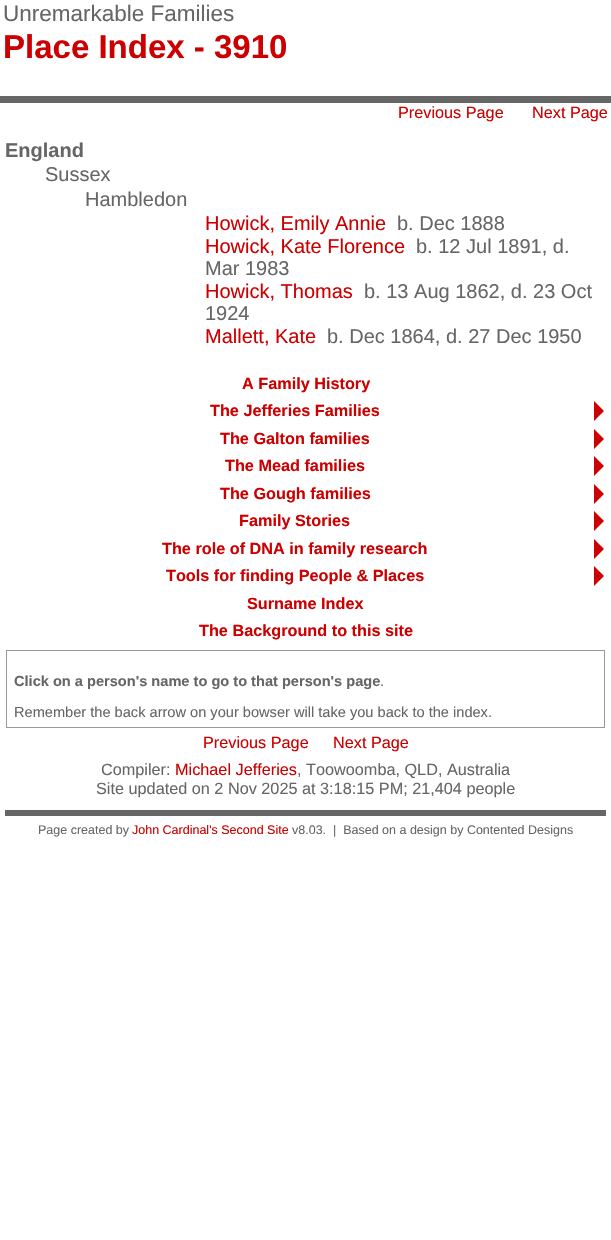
#include "include/core/SkBlurTypes.h"
#include "include/core/SkCanvas.h"
#include "include/core/SkData.h"
#include "include/core/SkFont.h"
#include "include/core/SkFontMgr.h"
#include "include/core/SkImage.h"
#include "include/core/SkMaskFilter.h"
#include "include/core/SkPaint.h"
#include "include/core/SkPathBuilder.h"
#include "include/core/SkTextBlob.h"
#include "include/effects/SkDashPathEffect.h"
#include "include/effects/SkGradientShader.h"
#include "include/utils/SkParsePath.h"

extern sk_sp<SkFontMgr> fontMgr;

void draw(SkCanvas* canvas) {
    SkPaint p;
    p.setAntiAlias(true);
    auto font = [&](const char* family, int weight, float size, bool italic = false) {
        SkFontStyle style(weight, SkFontStyle::kNormal_Width,
            italic ? SkFontStyle::kItalic_Slant : SkFontStyle::kUpright_Slant);
        SkFont result(fontMgr->matchFamilyStyle(family, style), size);
        result.setSubpixel(true);
        return result;
    };
    canvas->clear(0xFFFFFFFF);
    auto font1 = font("Liberation Sans", 400, 22.5f);
    p.setColor(0xFF666666);
    canvas->drawString("Unremarkable Families", 3, 21, font1, p);
    auto font2 = font("Liberation Sans", 700, 33);
    p.setColor(0xFFCC0000);
    canvas->drawString("Place Index - 3910", 3, 58, font2, p);
    p.setColor(0xFF666666);
    canvas->drawRect(SkRect::MakeLTRB(0, 96, 611, 103), p);
    auto font3 = font("Liberation Sans", 400, 16.25f);
    p.setColor(0xFFCC0000);
    canvas->drawString("Previous Page", 398, 118, font3, p);
    canvas->drawString("Next Page", 532, 118, font3, p);
    auto font4 = font("Liberation Sans", 700, 20);
    p.setColor(0xFF666666);
    canvas->drawString("England", 5, 157, font4, p);
    auto font5 = font("Liberation Sans", 400, 20);
    canvas->drawString("Sussex", 45, 181, font5, p);
    canvas->drawString("Hambledon", 85, 206, font5, p);
    p.setColor(0xFFCC0000);
    canvas->drawString("Howick, Emily Annie", 205, 230, font5, p);
    p.setColor(0xFF666666);
    canvas->drawString("b. Dec 1888", 397, 230, font5, p);
    p.setColor(0xFFCC0000);
    canvas->drawString("Howick, Kate Florence", 205, 253, font5, p);
    p.setColor(0xFF666666);
    canvas->drawString("b. 12 Jul 1891, d.", 416, 253, font5, p);
    canvas->drawString("Mar 1983", 205, 275, font5, p);
    p.setColor(0xFFCC0000);
    canvas->drawString("Howick, Thomas", 205, 298, font5, p);
    p.setColor(0xFF666666);
    canvas->drawString("b. 13 Aug 1862, d. 23 Oct", 364, 298, font5, p);
    canvas->drawString("1924", 205, 320, font5, p);
    p.setColor(0xFFCC0000);
    canvas->drawString("Mallett, Kate", 205, 343, font5, p);
    p.setColor(0xFF666666);
    canvas->drawString("b. Dec 1864, d. 27 Dec 1950", 327, 343, font5, p);
    auto font6 = font("Liberation Sans", 700, 16.25f);
    p.setColor(0xFFCC0000);
    canvas->drawString("A Family History", 242, 389, font6, p);
    canvas->drawString("The Jefferies Families", 210, 416, font6, p);
    canvas->drawPath(SkPathBuilder().moveTo(594, 421).lineTo(594, 401).lineTo(604, 411).close().detach(), p);
    canvas->drawString("The Galton families", 220, 444, font6, p);
    canvas->drawPath(SkPathBuilder().moveTo(594, 449).lineTo(594, 429).lineTo(604, 439).close().detach(), p);
    canvas->drawString("The Mead families", 225, 471, font6, p);
    canvas->drawPath(SkPathBuilder().moveTo(594, 476).lineTo(594, 456).lineTo(604, 466).close().detach(), p);
    canvas->drawString("The Gough families", 220, 499, font6, p);
    canvas->drawPath(SkPathBuilder().moveTo(594, 504).lineTo(594, 484).lineTo(604, 494).close().detach(), p);
    canvas->drawString("Family Stories", 239, 526, font6, p);
    canvas->drawPath(SkPathBuilder().moveTo(594, 531).lineTo(594, 511).lineTo(604, 521).close().detach(), p);
    canvas->drawString("The role of DNA in family research", 162, 554, font6, p);
    canvas->drawPath(SkPathBuilder().moveTo(594, 559).lineTo(594, 539).lineTo(604, 549).close().detach(), p);
    canvas->drawString("Tools for finding People & Places", 166, 581, font6, p);
    canvas->drawPath(SkPathBuilder().moveTo(594, 586).lineTo(594, 566).lineTo(604, 576).close().detach(), p);
    canvas->drawString("Surname Index", 247, 609, font6, p);
    canvas->drawString("The Background to this site", 199, 636, font6, p);
    p.setStyle(SkPaint::kStroke_Style);
    p.setStrokeWidth(1);
    p.setColor(0xFF999999);
    canvas->drawRect(SkRect::MakeLTRB(6.5f, 650.5f, 604.5f, 727.5f), p);
    auto font7 = font("Liberation Sans", 700, 14.6f);
    p.setStyle(SkPaint::kFill_Style);
    p.setColor(0xFF666666);
    canvas->drawString("Click on a person's name to go to that person's page", 14, 686, font7, p);
    auto font8 = font("Liberation Sans", 400, 14.6f);
    canvas->drawString(".", 380, 686, font8, p);
    canvas->drawString("Remember the back arrow on your bowser will take you back to the index.", 14, 717, font8, p);
    p.setColor(0xFFCC0000);
    canvas->drawString("Previous Page", 203, 748, font3, p);
    canvas->drawString("Next Page", 333, 748, font3, p);
    p.setColor(0xFF666666);
    canvas->drawString("Compiler:", 101, 775, font3, p);
    p.setColor(0xFFCC0000);
    canvas->drawString("Michael Jefferies", 175, 775, font3, p);
    p.setColor(0xFF666666);
    canvas->drawString(", Toowoomba, QLD, Australia", 297, 775, font3, p);
    canvas->drawString("Site updated on 2 Nov 2025 at 3:18:15 PM; 21,404 people", 96, 794, font3, p);
    canvas->drawRect(SkRect::MakeLTRB(5, 810, 606, 816), p);
    auto font9 = font("Liberation Sans", 400, 12.5f);
    canvas->drawString("Page created by", 38, 834, font9, p);
    p.setColor(0xFFCC0000);
    canvas->drawString("John Cardinal's Second Site", 132, 834, font9, p);
    p.setColor(0xFF666666);
    canvas->drawString("v8.03.  |  Based on a design by Contented Designs", 292, 834, font9, p);
}
